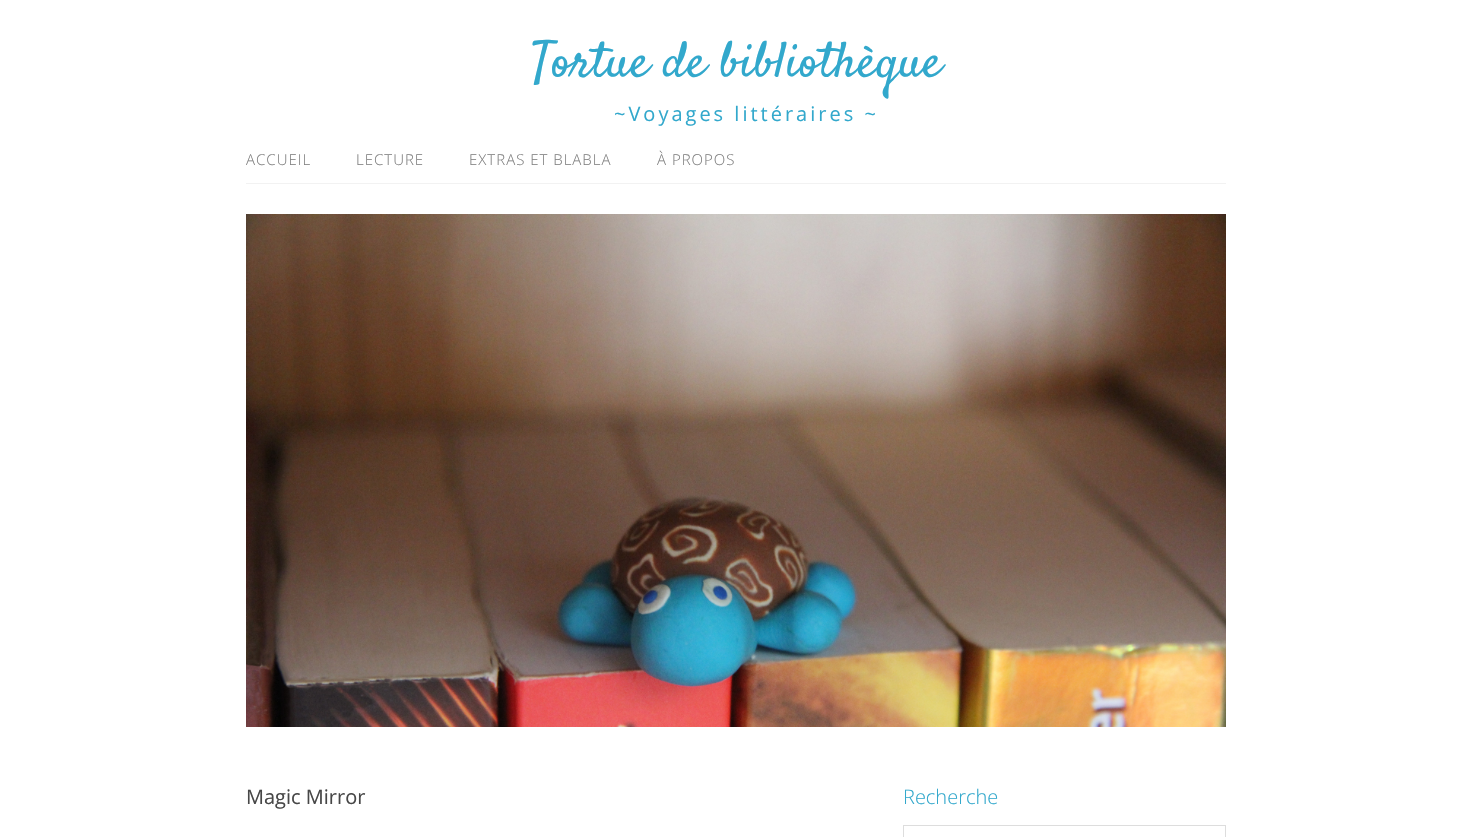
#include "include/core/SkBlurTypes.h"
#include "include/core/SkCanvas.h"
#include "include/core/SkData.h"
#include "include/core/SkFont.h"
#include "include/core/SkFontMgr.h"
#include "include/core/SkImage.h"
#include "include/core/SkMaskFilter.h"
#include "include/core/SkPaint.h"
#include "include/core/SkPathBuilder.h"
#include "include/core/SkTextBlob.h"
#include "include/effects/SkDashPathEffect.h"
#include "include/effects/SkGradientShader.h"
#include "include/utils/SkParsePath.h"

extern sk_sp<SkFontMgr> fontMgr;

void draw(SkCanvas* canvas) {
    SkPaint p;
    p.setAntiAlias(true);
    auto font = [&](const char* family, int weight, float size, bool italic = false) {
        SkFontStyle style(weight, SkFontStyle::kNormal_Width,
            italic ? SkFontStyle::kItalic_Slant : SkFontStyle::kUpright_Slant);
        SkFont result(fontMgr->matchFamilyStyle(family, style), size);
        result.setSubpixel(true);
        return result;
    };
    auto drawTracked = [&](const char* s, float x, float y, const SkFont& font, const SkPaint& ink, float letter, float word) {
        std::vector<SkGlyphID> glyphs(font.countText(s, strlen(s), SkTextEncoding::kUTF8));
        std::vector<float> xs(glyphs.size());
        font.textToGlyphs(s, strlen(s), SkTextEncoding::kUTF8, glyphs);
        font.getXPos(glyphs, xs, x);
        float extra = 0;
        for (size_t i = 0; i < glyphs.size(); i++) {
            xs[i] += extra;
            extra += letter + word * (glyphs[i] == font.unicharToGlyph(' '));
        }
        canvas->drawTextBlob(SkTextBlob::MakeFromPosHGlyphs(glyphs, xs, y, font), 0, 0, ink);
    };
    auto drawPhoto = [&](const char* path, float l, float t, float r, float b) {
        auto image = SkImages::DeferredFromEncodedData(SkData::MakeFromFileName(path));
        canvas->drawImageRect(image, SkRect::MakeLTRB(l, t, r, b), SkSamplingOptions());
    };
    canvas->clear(0xFFFFFFFF);
    auto font1 = font("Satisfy", 400, 50);
    p.setColor(0xFF32A8CC);
    canvas->drawString("Tortue de bibliothèque", 531, 76, font1, p);
    auto font2 = font("Open Sans", 400, 20);
    drawTracked("~Voyages littéraires ~", 614, 121, font2, p, 3, 0);
    p.setColor(0xFFF2F2F2);
    canvas->drawRect(SkRect::MakeLTRB(246, 183, 1226, 184), p);
    auto font3 = font("Open Sans", 300, 15);
    p.setColor(0xFF808080);
    {
        const struct { const char* s; float x, y; } items[] = {
            {"ACCUEIL", 246, 165},
            {"LECTURE", 356, 165},
            {"EXTRAS ET BLABLA", 469, 165},
            {"À PROPOS", 657, 165},
        };
        for (auto [s, x, y] : items) {
            drawTracked(s, x, y, font3, p, 1, 0);
        }
    }
    drawPhoto("media/1.png", 246, 214, 1226, 727);
    p.setColor(0xFF474747);
    canvas->drawString("Magic Mirror", 246, 804, font2, p);
    auto font4 = font("Open Sans", 300, 20);
    p.setColor(0xFF32A8CC);
    canvas->drawString("Recherche", 903, 804, font4, p);
    p.setStyle(SkPaint::kStroke_Style);
    p.setStrokeWidth(1);
    p.setColor(0xFFDDDDDD);
    canvas->drawRect(SkRect::MakeLTRB(903.5f, 825.5f, 1225.5f, 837.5f), p);
}
